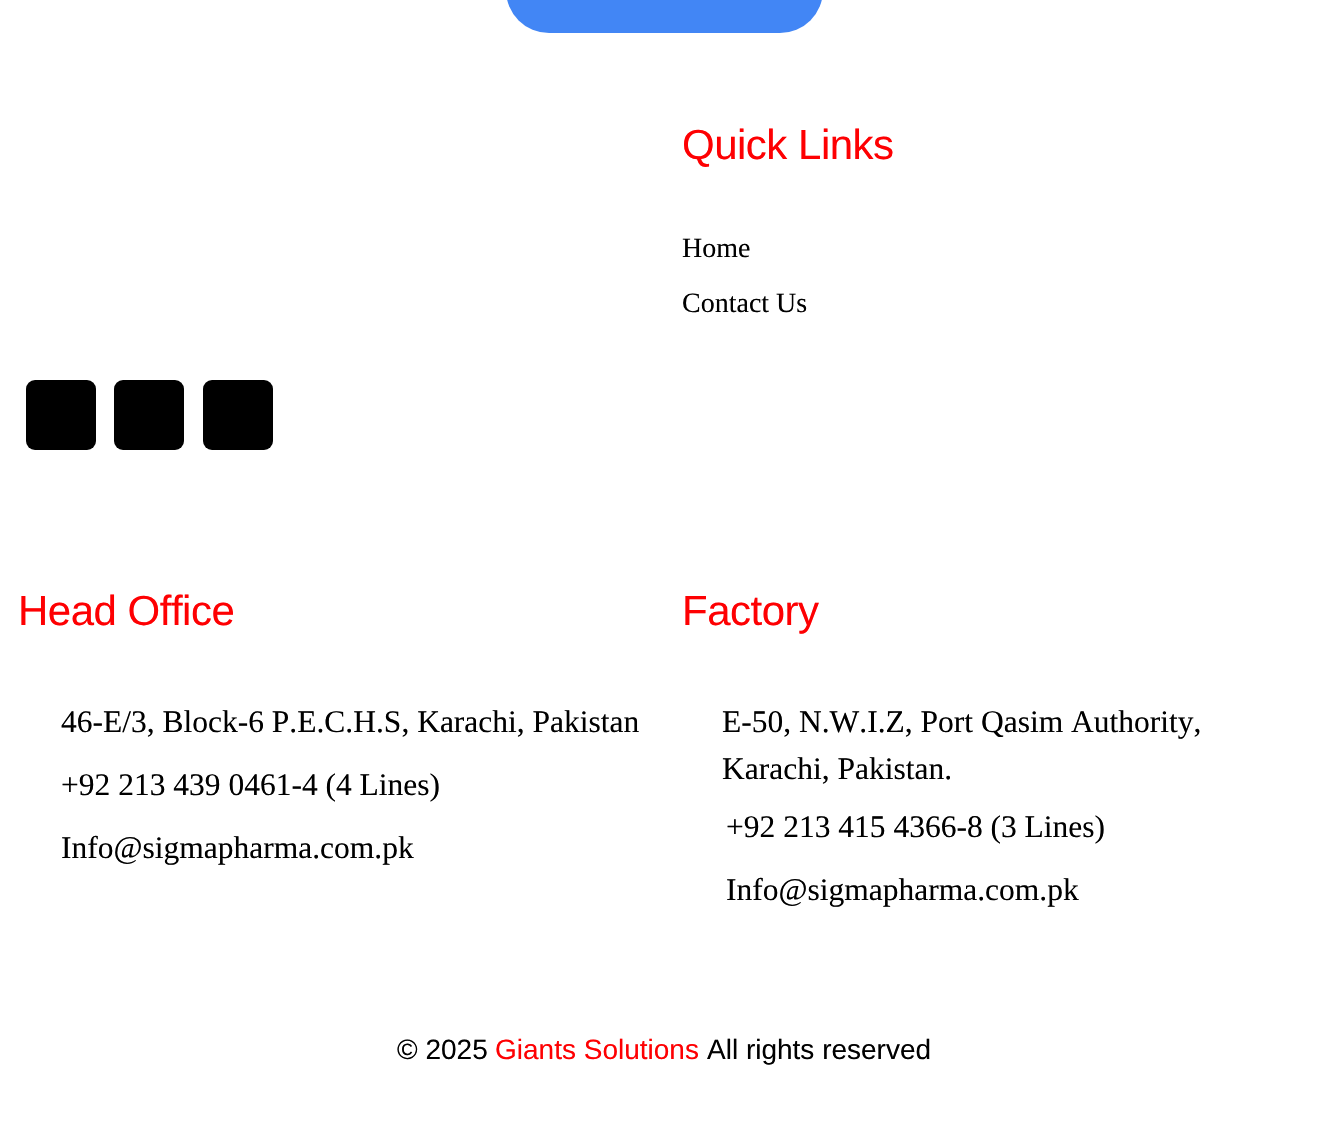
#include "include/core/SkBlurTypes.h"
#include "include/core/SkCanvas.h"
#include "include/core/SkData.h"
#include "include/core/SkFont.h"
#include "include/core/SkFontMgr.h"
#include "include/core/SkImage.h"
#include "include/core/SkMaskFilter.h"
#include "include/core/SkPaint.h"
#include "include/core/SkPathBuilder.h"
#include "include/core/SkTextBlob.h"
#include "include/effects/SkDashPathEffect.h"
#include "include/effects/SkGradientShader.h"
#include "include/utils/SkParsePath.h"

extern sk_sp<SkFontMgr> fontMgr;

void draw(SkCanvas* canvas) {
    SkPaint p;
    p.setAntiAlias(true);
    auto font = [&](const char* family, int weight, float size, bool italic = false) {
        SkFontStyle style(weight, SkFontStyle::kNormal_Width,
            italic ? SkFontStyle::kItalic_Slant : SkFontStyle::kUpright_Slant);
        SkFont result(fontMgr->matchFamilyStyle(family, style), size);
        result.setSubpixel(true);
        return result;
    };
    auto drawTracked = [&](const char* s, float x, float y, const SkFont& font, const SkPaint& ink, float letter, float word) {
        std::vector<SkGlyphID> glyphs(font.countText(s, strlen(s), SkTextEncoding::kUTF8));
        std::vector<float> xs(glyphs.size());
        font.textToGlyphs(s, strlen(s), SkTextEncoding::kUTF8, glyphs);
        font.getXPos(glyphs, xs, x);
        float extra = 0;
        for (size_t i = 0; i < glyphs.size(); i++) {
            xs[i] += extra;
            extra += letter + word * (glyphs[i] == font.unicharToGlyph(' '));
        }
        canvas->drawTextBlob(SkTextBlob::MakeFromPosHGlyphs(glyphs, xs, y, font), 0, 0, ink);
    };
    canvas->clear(0xFFFFFFFF);
    p.setColor(0xFF4286F5);
    canvas->drawRoundRect(SkRect::MakeLTRB(506, -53, 823, 33), 52.5f, 52.5f, p);
    auto font1 = font("Liberation Sans", 400, 42);
    p.setColor(0xFFFE0002);
    drawTracked("Quick Links", 682, 159, font1, p, -0.5f, 0);
    auto font2 = font("Liberation Serif", 400, 28);
    p.setColor(0xFF000000);
    canvas->drawString("Home", 682, 257, font2, p);
    canvas->drawString("Contact Us", 682, 312, font2, p);
    canvas->drawRoundRect(SkRect::MakeLTRB(26, 380, 96, 450), 9, 9, p);
    canvas->drawRoundRect(SkRect::MakeLTRB(114, 380, 184, 450), 9, 9, p);
    canvas->drawRoundRect(SkRect::MakeLTRB(203, 380, 273, 450), 9, 9, p);
    p.setColor(0xFFFE0002);
    drawTracked("Head Office", 18, 625, font1, p, -0.5f, 0);
    auto font3 = font("Liberation Serif", 400, 31.5f);
    p.setColor(0xFF000000);
    {
        const struct { const char* s; float x, y; } items[] = {
            {"46-E/3, Block-6 P.E.C.H.S, Karachi, Pakistan", 61, 732},
            {"+92 213 439 0461-4 (4 Lines)", 61, 795},
            {"Info@sigmapharma.com.pk", 61, 858},
        };
        for (auto [s, x, y] : items) {
            canvas->drawString(s, x, y, font3, p);
        }
    }
    p.setColor(0xFFFE0002);
    drawTracked("Factory", 682, 625, font1, p, -0.5f, 0);
    p.setColor(0xFF000000);
    {
        const struct { const char* s; float x, y; } items[] = {
            {"E-50, N.W.I.Z, Port Qasim Authority,", 722, 732},
            {"Karachi, Pakistan.", 722, 779},
            {"+92 213 415 4366-8 (3 Lines)", 726, 837},
            {"Info@sigmapharma.com.pk", 726, 900},
        };
        for (auto [s, x, y] : items) {
            canvas->drawString(s, x, y, font3, p);
        }
    }
    auto font4 = font("Liberation Sans", 400, 28);
    canvas->drawString("© 2025", 397, 1059, font4, p);
    p.setColor(0xFFFE0002);
    canvas->drawString("Giants Solutions", 495, 1059, font4, p);
    p.setColor(0xFF000000);
    canvas->drawString("All rights reserved", 707, 1059, font4, p);
}
